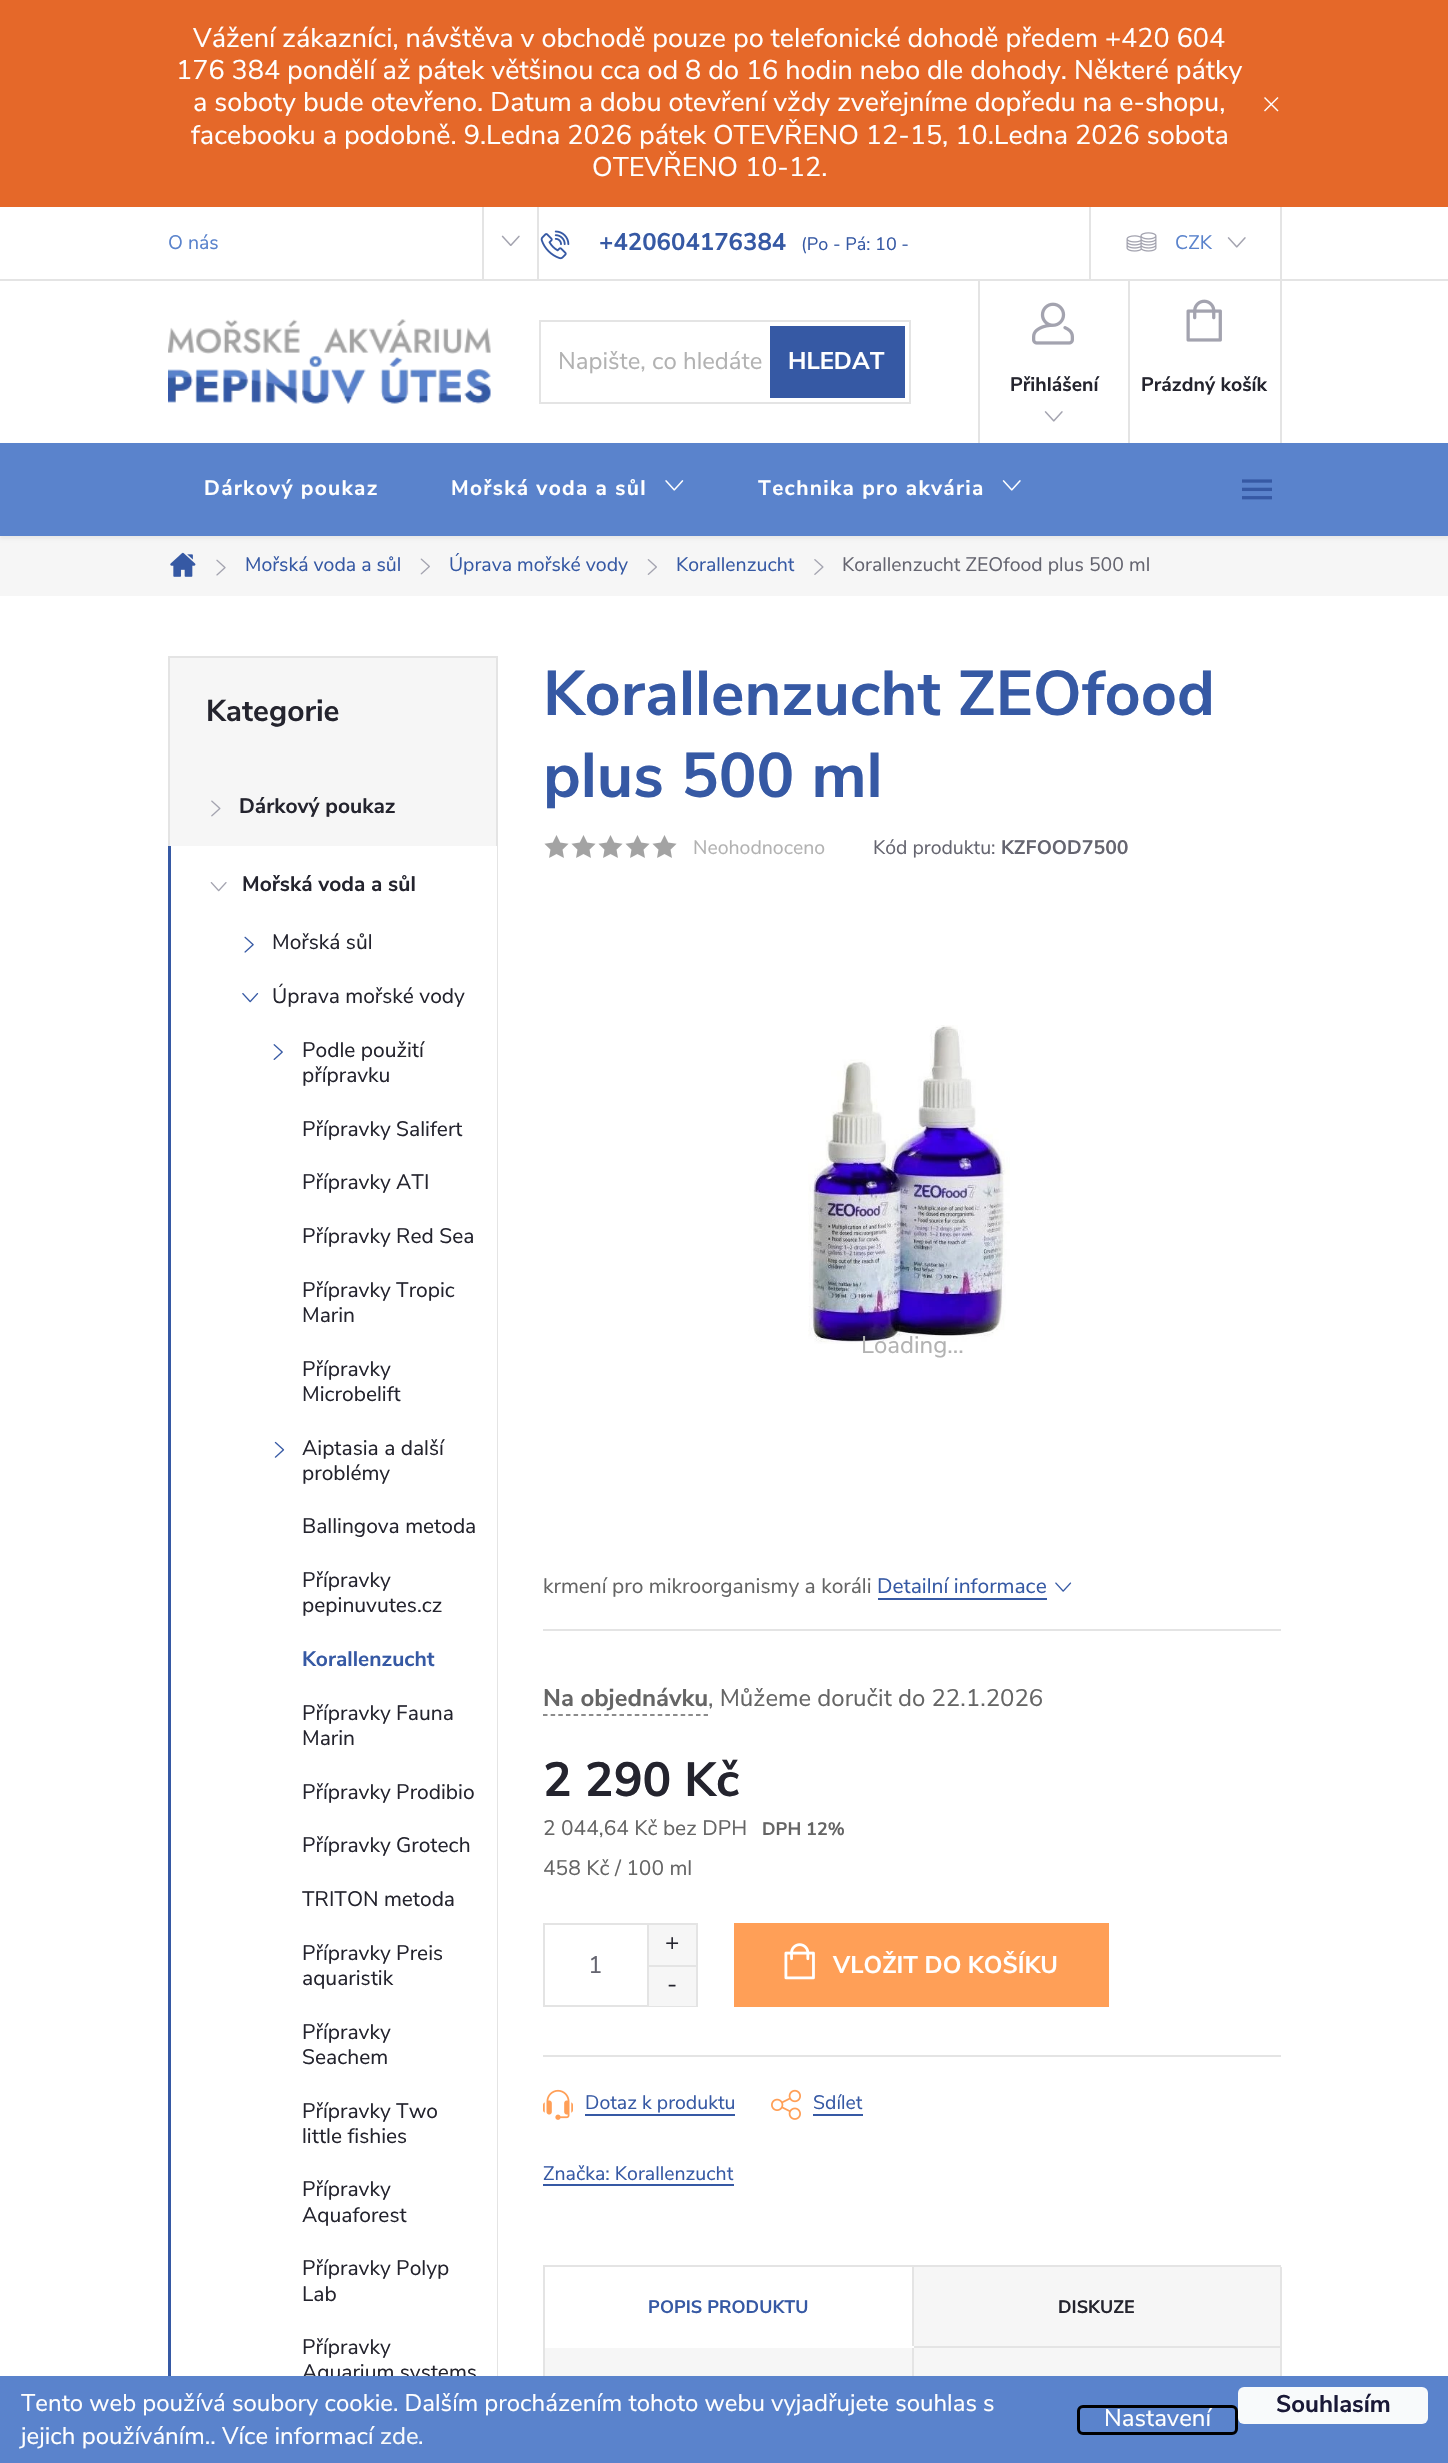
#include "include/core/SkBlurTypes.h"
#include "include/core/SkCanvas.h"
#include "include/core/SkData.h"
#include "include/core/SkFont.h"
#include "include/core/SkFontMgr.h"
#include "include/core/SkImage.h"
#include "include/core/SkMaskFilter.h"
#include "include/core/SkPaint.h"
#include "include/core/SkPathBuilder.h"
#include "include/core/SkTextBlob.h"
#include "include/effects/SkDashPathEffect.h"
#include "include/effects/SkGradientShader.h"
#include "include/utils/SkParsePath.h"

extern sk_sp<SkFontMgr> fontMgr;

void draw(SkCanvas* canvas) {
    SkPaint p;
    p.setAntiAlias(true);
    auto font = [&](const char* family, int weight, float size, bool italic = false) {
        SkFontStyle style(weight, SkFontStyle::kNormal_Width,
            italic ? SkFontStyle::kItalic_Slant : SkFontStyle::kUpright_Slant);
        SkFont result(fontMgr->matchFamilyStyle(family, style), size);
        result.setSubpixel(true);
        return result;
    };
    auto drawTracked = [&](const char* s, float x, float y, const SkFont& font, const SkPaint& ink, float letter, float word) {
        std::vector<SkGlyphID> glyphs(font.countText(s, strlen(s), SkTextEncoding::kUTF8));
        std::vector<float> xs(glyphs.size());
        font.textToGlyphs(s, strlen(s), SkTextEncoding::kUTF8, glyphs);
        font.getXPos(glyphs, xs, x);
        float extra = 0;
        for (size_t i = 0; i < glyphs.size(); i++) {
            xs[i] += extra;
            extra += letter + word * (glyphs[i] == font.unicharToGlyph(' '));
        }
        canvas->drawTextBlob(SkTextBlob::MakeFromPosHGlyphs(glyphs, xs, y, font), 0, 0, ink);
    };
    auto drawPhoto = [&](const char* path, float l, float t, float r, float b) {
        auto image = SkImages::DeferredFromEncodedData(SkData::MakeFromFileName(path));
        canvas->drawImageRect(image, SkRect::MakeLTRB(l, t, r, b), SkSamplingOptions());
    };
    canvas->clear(0xFFFFFFFF);
    p.setColor(0xFFE56829);
    canvas->drawRect(SkRect::MakeLTRB(0, 0, 1448, 207), p);
    auto font1 = font("Nunito Sans", 400, 27);
    p.setColor(0xFFFFFFFF);
    {
        const struct { const char* s; float x, y; } items[] = {
            {"Vážení zákazníci, návštěva v obchodě pouze po telefonické dohodě předem +420 604", 193, 47},
            {"176 384 pondělí až pátek většinou cca od 8 do 16 hodin nebo dle dohody. Některé pátky", 176, 79},
            {"a soboty bude otevřeno. Datum a dobu otevření vždy zveřejníme dopředu na e-shopu,", 193, 111},
            {"facebooku a podobně. 9.Ledna 2026 pátek OTEVŘENO 12-15, 10.Ledna 2026 sobota", 191, 144},
            {"OTEVŘENO 10-12.", 592, 176},
        };
        for (auto [s, x, y] : items) {
            canvas->drawString(s, x, y, font1, p);
        }
    }
    canvas->drawPath(SkPathBuilder().moveTo(1277.5f, 97).lineTo(1278.5f, 98).lineTo(1265, 111.5f).lineTo(1264, 110.5f).close().detach(), p);
    canvas->drawPath(SkPathBuilder().moveTo(1265, 97).lineTo(1278.5f, 110.5f).lineTo(1277.5f, 111.5f).lineTo(1264, 98).close().detach(), p);
    p.setColor(0xFFE4E4E4);
    canvas->drawRect(SkRect::MakeLTRB(0, 279, 1448, 281), p);
    auto font2 = font("Nunito Sans", 400, 19.5f);
    p.setColor(0xFF5A83CC);
    canvas->drawString("O nás", 168, 249, font2, p);
    p.setColor(0xFFE4E4E4);
    canvas->drawRect(SkRect::MakeLTRB(537, 207, 539, 279), p);
    canvas->drawRect(SkRect::MakeLTRB(482, 207, 484, 279), p);
    drawPhoto("media/1.png", 501, 235, 520, 246);
    drawPhoto("media/2.png", 540, 230, 570, 260);
    auto font3 = font("Nunito Sans", 700, 24);
    p.setColor(0xFF3659A4);
    canvas->drawString("+420604176384", 599, 250, font3, p);
    auto font4 = font("Nunito Sans", 400, 18);
    canvas->drawString("(Po - Pá: 10 -", 801, 250, font4, p);
    p.setColor(0xFFE4E4E4);
    canvas->drawRect(SkRect::MakeLTRB(1280, 207, 1282, 279), p);
    canvas->drawRect(SkRect::MakeLTRB(1089, 207, 1091, 279), p);
    drawPhoto("media/3.png", 1126, 232, 1157, 252);
    p.setColor(0xFF5A83CC);
    canvas->drawString("CZK", 1175, 249, font2, p);
    drawPhoto("media/4.png", 1227, 237, 1246, 248);
    drawPhoto("media/5.png", 168, 319, 491, 404);
    p.setStyle(SkPaint::kStroke_Style);
    p.setStrokeWidth(2);
    p.setColor(0xFFE4E4E4);
    canvas->drawRect(SkRect::MakeLTRB(540, 321, 910, 403), p);
    auto font5 = font("Nunito Sans", 400, 24);
    p.setStyle(SkPaint::kFill_Style);
    p.setColor(0xFFB2B2B2);
    canvas->drawString("Napište, co hledáte", 558, 369, font5, p);
    p.setColor(0xFF3659A4);
    canvas->drawRect(SkRect::MakeLTRB(770, 326, 905, 398), p);
    p.setColor(0xFFFFFFFF);
    canvas->drawString("HLEDAT", 788, 369, font3, p);
    p.setColor(0xFFE4E4E4);
    canvas->drawRect(SkRect::MakeLTRB(978, 281, 980, 443), p);
    drawPhoto("media/6.png", 1032, 302, 1074, 345);
    auto font6 = font("Nunito Sans", 700, 19.5f);
    p.setColor(0xFF24242E);
    canvas->drawString("Přihlášení", 1010, 391, font6, p);
    drawPhoto("media/4.png", 1044, 411, 1063, 422);
    p.setColor(0xFFE4E4E4);
    canvas->drawRect(SkRect::MakeLTRB(1280, 281, 1282, 443), p);
    canvas->drawRect(SkRect::MakeLTRB(1128, 281, 1130, 443), p);
    drawPhoto("media/7.png", 1186, 299, 1222, 342);
    p.setColor(0xFF24242E);
    canvas->drawString("Prázdný košík", 1141, 391, font6, p);
    p.setColor(0xFFF6F6F6);
    canvas->drawRect(SkRect::MakeLTRB(0, 536, 1448, 596), p);
    p.setColor(0x0D000000);
    p.setMaskFilter(SkMaskFilter::MakeBlur(kNormal_SkBlurStyle, 1.5f));
    canvas->drawRect(SkRect::MakeLTRB(0, 446, 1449, 539), p);
    p.setMaskFilter(nullptr);
    p.setColor(0xFF5A83CC);
    canvas->drawRect(SkRect::MakeLTRB(0, 443, 1448, 536), p);
    auto font7 = font("Nunito Sans", 700, 21);
    p.setColor(0xFFFFFFFF);
    drawTracked("Dárkový poukaz", 204, 495, font7, p, 1.3f, 0);
    drawTracked("Mořská voda a sůl", 451, 495, font7, p, 1.3f, 0);
    drawPhoto("media/8.png", 665, 480, 684, 491);
    drawTracked("Technika pro akvária", 758, 495, font7, p, 1.3f, 0);
    drawPhoto("media/9.png", 1002, 480, 1021, 491);
    drawPhoto("media/10.png", 1242, 479, 1272, 500);
    drawPhoto("media/11.png", 170, 552, 196, 577);
    drawPhoto("media/12.png", 216, 559, 226, 576);
    p.setColor(0xFF3659A4);
    canvas->drawString("Mořská voda a sůl", 245, 571, font2, p);
    drawPhoto("media/13.png", 420, 558, 430, 575);
    canvas->drawString("Úprava mořské vody", 449, 571, font2, p);
    drawPhoto("media/14.png", 647, 559, 657, 575);
    canvas->drawString("Korallenzucht", 676, 571, font2, p);
    drawPhoto("media/15.png", 814, 559, 824, 575);
    p.setColor(0xFF656570);
    canvas->drawString("Korallenzucht ZEOfood plus 500 ml", 842, 571, font2, p);
    p.setColor(0xFFF6F6F6);
    canvas->drawRect(SkRect::MakeLTRB(170, 658, 496, 846), p);
    p.setStyle(SkPaint::kStroke_Style);
    p.setColor(0xFFE4E4E4);
    canvas->drawRect(SkRect::MakeLTRB(169, 657, 497, 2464), p);
    auto font8 = font("Nunito Sans", 700, 30);
    p.setStyle(SkPaint::kFill_Style);
    p.setColor(0xFF24242E);
    canvas->drawString("Kategorie", 206, 721, font8, p);
    drawPhoto("media/16.png", 211, 800, 221, 817);
    canvas->drawString("Dárkový poukaz", 239, 813, font7, p);
    p.setColor(0xFFFFFFFF);
    canvas->drawRect(SkRect::MakeLTRB(496, 846, 497, 2376), p);
    p.setColor(0xFF3659A4);
    canvas->drawRect(SkRect::MakeLTRB(168, 846, 171, 2376), p);
    drawPhoto("media/17.png", 210, 882, 227, 892);
    p.setColor(0xFF24242E);
    canvas->drawString("Mořská voda a sůl", 242, 891, font7, p);
    drawPhoto("media/18.png", 244, 936, 254, 953);
    auto font9 = font("Nunito Sans", 400, 21);
    canvas->drawString("Mořská sůl", 272, 949, font9, p);
    drawPhoto("media/19.png", 242, 993, 259, 1003);
    canvas->drawString("Úprava mořské vody", 272, 1003, font9, p);
    drawPhoto("media/20.png", 273, 1044, 283, 1060);
    {
        const struct { const char* s; float x, y; } items[] = {
            {"Podle použití", 302, 1057},
            {"přípravku", 302, 1082},
            {"Přípravky Salifert", 302, 1136},
            {"Přípravky ATI", 302, 1189},
            {"Přípravky Red Sea", 302, 1243},
            {"Přípravky Tropic", 302, 1297},
            {"Marin", 302, 1322},
            {"Přípravky", 302, 1376},
            {"Microbelift", 302, 1401},
        };
        for (auto [s, x, y] : items) {
            canvas->drawString(s, x, y, font9, p);
        }
    }
    drawPhoto("media/21.png", 274, 1441, 285, 1458);
    {
        const struct { const char* s; float x, y; } items[] = {
            {"Aiptasia a další", 302, 1455},
            {"problémy", 302, 1480},
            {"Ballingova metoda", 302, 1533},
            {"Přípravky", 302, 1587},
            {"pepinuvutes.cz", 302, 1612},
        };
        for (auto [s, x, y] : items) {
            canvas->drawString(s, x, y, font9, p);
        }
    }
    p.setColor(0xFF3659A4);
    canvas->drawString("Korallenzucht", 302, 1666, font7, p);
    p.setColor(0xFF24242E);
    {
        const struct { const char* s; float x, y; } items[] = {
            {"Přípravky Fauna", 302, 1720},
            {"Marin", 302, 1745},
            {"Přípravky Prodibio", 302, 1799},
            {"Přípravky Grotech", 302, 1852},
            {"TRITON metoda", 302, 1906},
            {"Přípravky Preis", 302, 1960},
            {"aquaristik", 302, 1985},
            {"Přípravky", 302, 2039},
            {"Seachem", 302, 2064},
            {"Přípravky Two", 302, 2118},
            {"little fishies", 302, 2143},
            {"Přípravky", 302, 2196},
            {"Aquaforest", 302, 2222},
            {"Přípravky Polyp", 302, 2275},
            {"Lab", 302, 2301},
            {"Přípravky", 302, 2354},
            {"Aquarium systems", 302, 2379},
        };
        for (auto [s, x, y] : items) {
            canvas->drawString(s, x, y, font9, p);
        }
    }
    auto font10 = font("Nunito Sans", 700, 63);
    p.setColor(0xFF3659A4);
    canvas->drawString("Korallenzucht ZEOfood", 543, 715, font10, p);
    canvas->drawString("plus 500 ml", 543, 797, font10, p);
    drawPhoto("media/22.png", 544, 835, 569, 858);
    drawPhoto("media/22.png", 571, 835, 596, 858);
    drawPhoto("media/22.png", 598, 835, 623, 858);
    drawPhoto("media/22.png", 625, 835, 650, 858);
    drawPhoto("media/22.png", 652, 835, 677, 858);
    p.setColor(0xFFB2B2B2);
    canvas->drawString("Neohodnoceno", 693, 854, font2, p);
    p.setColor(0xFF656570);
    canvas->drawString("Kód produktu:", 873, 854, font2, p);
    canvas->drawString("KZFOOD7500", 1001, 854, font6, p);
    drawPhoto("media/23.png", 808, 1025, 1010, 1344);
    p.setColor(0xFFB2B2B2);
    canvas->drawString("Loading...", 861, 1353, font5, p);
    p.setColor(0xFFE4E4E4);
    canvas->drawRect(SkRect::MakeLTRB(543, 1629, 1281, 1631), p);
    p.setColor(0xFF656565);
    canvas->drawString("krmení pro mikroorganismy a koráli", 543, 1593, font9, p);
    p.setColor(0xFF3659A4);
    canvas->drawString("Detailní informace", 877, 1593, font9, p);
    canvas->drawRect(SkRect::MakeLTRB(878, 1598, 1047, 1600), p);
    drawPhoto("media/24.png", 1055, 1582, 1072, 1592);
    p.setColor(0xFF656565);
    canvas->drawString("Na objednávku", 543, 1706, font3, p);
    p.setStyle(SkPaint::kStroke_Style);
    p.setStrokeWidth(1.5f);
    p.setPathEffect(SkDashPathEffect::Make({{4.5f, 3.15f}}, 0));
    canvas->drawPath(SkPathBuilder().moveTo(543, 1715).lineTo(708, 1715).detach(), p);
    p.setPathEffect(nullptr);
    p.setStyle(SkPaint::kFill_Style);
    canvas->drawString(", Můžeme doručit do 22.1.2026", 708, 1706, font5, p);
    auto font11 = font("Nunito Sans", 700, 48);
    p.setColor(0xFF24242E);
    canvas->drawString("2 290 Kč", 543, 1796, font11, p);
    p.setColor(0xFF656565);
    canvas->drawString("2 044,64 Kč bez DPH", 543, 1835, font9, p);
    auto font12 = font("Nunito Sans", 700, 18);
    canvas->drawString("DPH 12%", 762, 1835, font12, p);
    canvas->drawString("458 Kč / 100 ml", 543, 1875, font9, p);
    p.setStyle(SkPaint::kStroke_Style);
    p.setStrokeWidth(2);
    p.setColor(0xFFE4E4E4);
    canvas->drawRect(SkRect::MakeLTRB(544, 1924, 697, 2006), p);
    p.setStyle(SkPaint::kFill_Style);
    p.setColor(0xFFF6F6F6);
    canvas->drawRect(SkRect::MakeLTRB(649, 1925, 696, 1965), p);
    p.setColor(0xFFE4E4E4);
    canvas->drawRect(SkRect::MakeLTRB(647, 1925, 649, 1965), p);
    p.setColor(0xFF24242E);
    canvas->drawString("+", 665, 1950, font5, p);
    p.setColor(0xFF656570);
    canvas->drawString("1", 588, 1973, font5, p);
    {
        const struct { float l, t, r, b; SkColor color; } items[] = {
            {649, 1967, 696, 2006, 0xFFF6F6F6},
            {647, 1965, 696, 1967, 0xFFE4E4E4},
            {647, 1965, 649, 2006, 0xFFE4E4E4},
        };
        for (auto [l, t, r, b, color] : items) {
            p.setColor(color);
            canvas->drawRect(SkRect::MakeLTRB(l, t, r, b), p);
        }
    }
    p.setColor(0xFF24242E);
    canvas->drawString("-", 667, 1992, font5, p);
    p.setColor(0xFFFF9F57);
    canvas->drawRect(SkRect::MakeLTRB(734, 1923, 1109, 2007), p);
    drawPhoto("media/25.png", 784, 1943, 815, 1980);
    p.setColor(0xFFFFFFFF);
    canvas->drawString("VLOŽIT DO KOŠÍKU", 833, 1973, font3, p);
    p.setColor(0xFFE4E4E4);
    canvas->drawRect(SkRect::MakeLTRB(543, 2055, 1281, 2057), p);
    drawPhoto("media/26.png", 543, 2089, 573, 2120);
    p.setColor(0xFF3659A4);
    canvas->drawString("Dotaz k produktu", 585, 2109, font2, p);
    canvas->drawRect(SkRect::MakeLTRB(585, 2114, 735, 2116), p);
    drawPhoto("media/27.png", 771, 2089, 801, 2120);
    canvas->drawString("Sdílet", 813, 2109, font2, p);
    canvas->drawRect(SkRect::MakeLTRB(813, 2114, 863, 2116), p);
    canvas->drawString("Značka: Korallenzucht", 543, 2180, font2, p);
    {
        const struct { float l, t, r, b; SkColor color; } items[] = {
            {543, 2184, 734, 2186, 0xFF3659A4},
            {545, 2267, 1280, 2376, 0xFFF6F6F6},
            {543, 2265, 1281, 2267, 0xFFE4E4E4},
            {543, 2265, 545, 2376, 0xFFE4E4E4},
            {545, 2267, 912, 2346, 0xFFFFFFFF},
            {912, 2267, 914, 2376, 0xFFE4E4E4},
            {545, 2346, 914, 2348, 0xFFFFFFFF},
        };
        for (auto [l, t, r, b, color] : items) {
            p.setColor(color);
            canvas->drawRect(SkRect::MakeLTRB(l, t, r, b), p);
        }
    }
    p.setColor(0xFF3659A4);
    canvas->drawString("POPIS PRODUKTU", 648, 2313, font12, p);
    p.setColor(0xFFE4E4E4);
    canvas->drawRect(SkRect::MakeLTRB(1280, 2267, 1282, 2376), p);
    canvas->drawRect(SkRect::MakeLTRB(914, 2346, 1281, 2348), p);
    p.setColor(0xFF24242E);
    canvas->drawString("DISKUZE", 1058, 2313, font12, p);
    p.setColor(0xFF5A83CC);
    canvas->drawRect(SkRect::MakeLTRB(0, 2376, 1448, 2463), p);
    p.setColor(0xFFFFFFFF);
    canvas->drawString("Tento web používá soubory cookie. Dalším procházením tohoto webu vyjadřujete souhlas s", 21, 2411, font5, p);
    canvas->drawString("jejich používáním.. Více informací", 21, 2444, font5, p);
    p.setColor(0xFFF8FAFB);
    canvas->drawString("zde", 380, 2444, font5, p);
    p.setColor(0xFFFFFFFF);
    canvas->drawString(".", 418, 2444, font5, p);
    p.setStyle(SkPaint::kStroke_Style);
    p.setStrokeWidth(3);
    p.setColor(0xFF000000);
    canvas->drawRoundRect(SkRect::MakeLTRB(1078.5f, 2406.5f, 1236.5f, 2433.5f), 4.5f, 4.5f, p);
    p.setStyle(SkPaint::kFill_Style);
    p.setColor(0xFFFFFFFF);
    canvas->drawString("Nastavení", 1104, 2426, font5, p);
    p.setColor(0xFFF8FAFB);
    canvas->drawRoundRect(SkRect::MakeLTRB(1238, 2387, 1428, 2424), 6, 6, p);
    p.setColor(0xFF1A1937);
    canvas->drawString("Souhlasím", 1276, 2412, font3, p);
}
